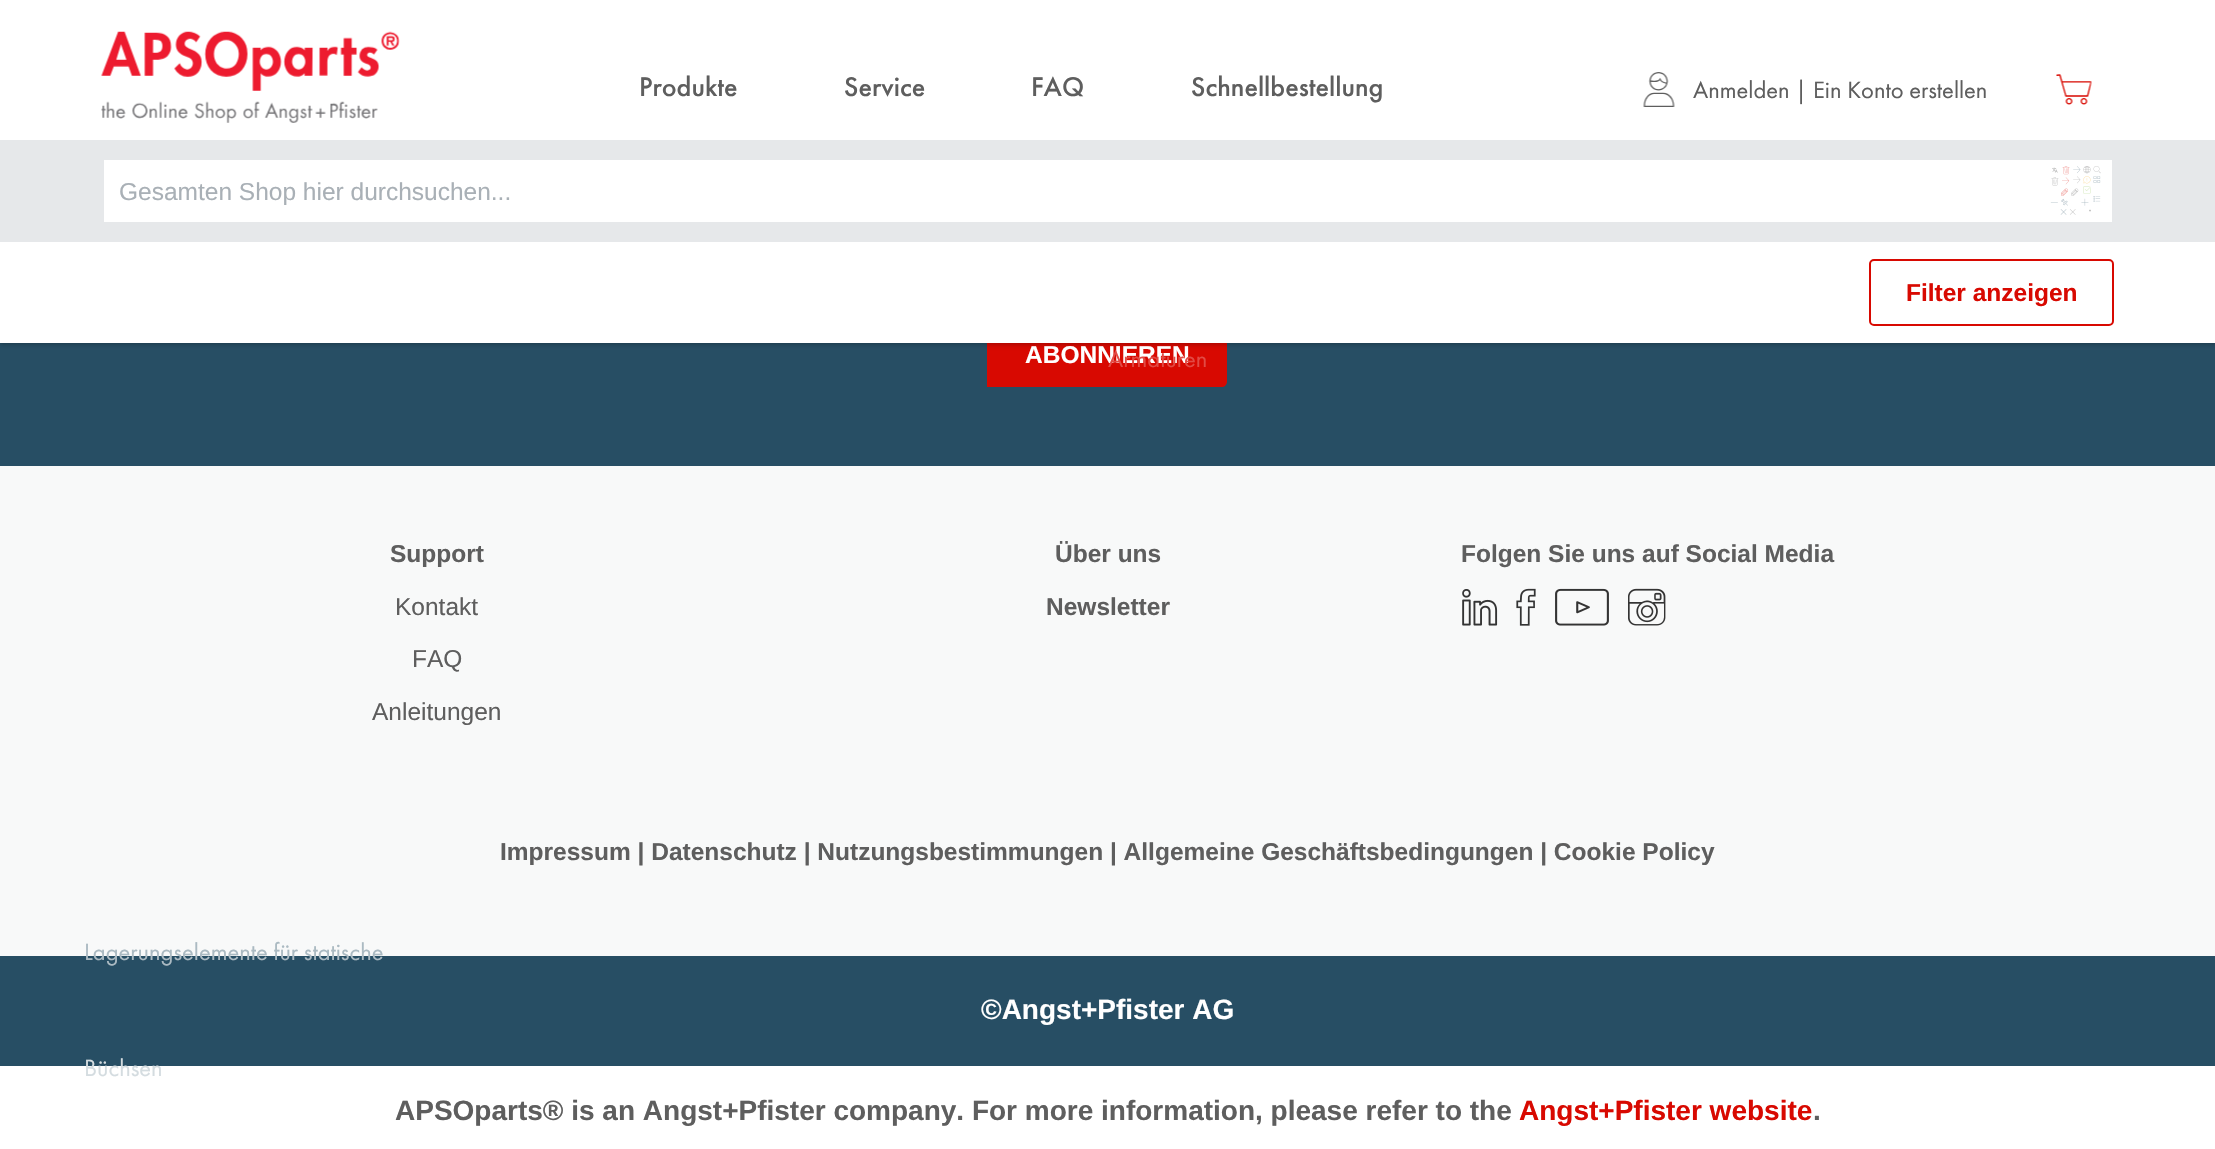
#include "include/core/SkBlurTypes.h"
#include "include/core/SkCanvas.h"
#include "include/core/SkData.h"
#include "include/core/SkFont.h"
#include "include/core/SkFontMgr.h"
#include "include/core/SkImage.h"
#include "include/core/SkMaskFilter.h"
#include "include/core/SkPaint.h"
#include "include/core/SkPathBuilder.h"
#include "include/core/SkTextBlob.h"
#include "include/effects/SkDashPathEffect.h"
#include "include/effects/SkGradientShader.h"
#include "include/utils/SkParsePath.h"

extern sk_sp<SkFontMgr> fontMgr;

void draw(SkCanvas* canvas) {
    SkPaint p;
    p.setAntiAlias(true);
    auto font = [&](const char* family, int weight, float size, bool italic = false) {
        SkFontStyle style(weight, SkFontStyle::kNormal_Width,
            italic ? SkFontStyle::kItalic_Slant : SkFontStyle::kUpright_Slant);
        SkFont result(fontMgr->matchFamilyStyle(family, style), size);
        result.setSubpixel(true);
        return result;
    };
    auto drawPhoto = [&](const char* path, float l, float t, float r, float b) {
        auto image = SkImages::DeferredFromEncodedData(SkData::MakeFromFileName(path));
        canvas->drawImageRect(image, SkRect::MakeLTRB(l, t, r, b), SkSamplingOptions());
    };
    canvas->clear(0xFFFFFFFF);
    drawPhoto("media/1.png", 101, 31, 400, 123);
    drawPhoto("media/2.png", 2056, 74, 2092, 105);
    auto font1 = font("Futura PT", 500, 28);
    p.setColor(0xFF5E5E5E);
    canvas->drawString("Produkte", 639, 96, font1, p);
    p.setColor(0xFF274E64);
    canvas->drawRect(SkRect::MakeLTRB(0, 343, 2215, 466), p);
    p.setColor(0xFFD80901);
    canvas->drawPath(SkPathBuilder().moveTo(988, 321).lineTo(1222, 321).cubicTo(1224, 321, 1226, 323, 1226, 325).lineTo(1226, 382).cubicTo(1226, 384, 1224, 386, 1222, 386).lineTo(988, 386).close().detach(), p);
    p.setStyle(SkPaint::kStroke_Style);
    p.setStrokeWidth(2);
    canvas->drawPath(SkPathBuilder().moveTo(988, 321).lineTo(1222, 321).cubicTo(1224, 321, 1226, 323, 1226, 325).lineTo(1226, 382).cubicTo(1226, 384, 1224, 386, 1222, 386).lineTo(988, 386).close().detach(), p);
    p.setStyle(SkPaint::kFill_Style);
    p.setColor(0x33000000);
    p.setMaskFilter(SkMaskFilter::MakeBlur(kNormal_SkBlurStyle, 2));
    canvas->drawRect(SkRect::MakeLTRB(0, 243, 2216, 345), p);
    p.setMaskFilter(nullptr);
    auto font2 = font("Liberation Sans", 700, 24.5f);
    p.setColor(0xFFFFFFFF);
    canvas->drawString("ABONNIEREN", 1025, 363, font2, p);
    auto font3 = font("Futura PT", 400, 24.5f);
    p.setColor(0xFFE24A44);
    canvas->drawString("Armaturen", 1108, 367, font3, p);
    p.setColor(0xFFF8F9F9);
    canvas->drawRect(SkRect::MakeLTRB(0, 466, 2215, 956), p);
    p.setColor(0xFF274E64);
    canvas->drawRect(SkRect::MakeLTRB(0, 956, 2215, 1066), p);
    p.setColor(0xFFABBAC2);
    canvas->drawString("Lagerungselemente für statische", 84, 960, font3, p);
    p.setColor(0xFFD4DCE0);
    canvas->drawString("Büchsen", 84, 1076, font3, p);
    p.setColor(0xFF5E5E5E);
    {
        const struct { const char* s; float x, y; } items[] = {
            {"Schnellbestellung", 1191, 96},
            {"Service", 844, 96},
            {"FAQ", 1031, 96},
        };
        for (auto [s, x, y] : items) {
            canvas->drawString(s, x, y, font1, p);
        }
    }
    drawPhoto("media/3.png", 1643, 72, 1675, 107);
    {
        const struct { const char* s; float x, y; } items[] = {
            {"Anmelden", 1693, 98},
            {"|", 1795, 98},
            {"Ein Konto erstellen", 1813, 98},
        };
        for (auto [s, x, y] : items) {
            canvas->drawString(s, x, y, font3, p);
        }
    }
    p.setColor(0xFFE6E8EA);
    canvas->drawRect(SkRect::MakeLTRB(0, 140, 2215, 242), p);
    p.setColor(0xFFFFFFFF);
    canvas->drawRect(SkRect::MakeLTRB(104, 160, 2112, 222), p);
    auto font4 = font("Liberation Sans", 400, 24.5f);
    p.setColor(0xFFA9B0B6);
    canvas->drawString("Gesamten Shop hier durchsuchen...", 119, 200, font4, p);
    drawPhoto("media/4.png", 2050, 166, 2101, 215);
    p.setColor(0xFFFFFFFF);
    canvas->drawRect(SkRect::MakeLTRB(0, 242, 2215, 343), p);
    p.setStyle(SkPaint::kStroke_Style);
    p.setColor(0xFFD80901);
    canvas->drawRoundRect(SkRect::MakeLTRB(1870, 260, 2113, 325), 4, 4, p);
    p.setStyle(SkPaint::kFill_Style);
    canvas->drawString("Filter anzeigen", 1906, 301, font2, p);
    p.setColor(0xFF5E5E5E);
    canvas->drawString("Support", 390, 562, font2, p);
    {
        const struct { const char* s; float x, y; } items[] = {
            {"Kontakt", 395, 615},
            {"FAQ", 412, 667},
            {"Anleitungen", 372, 720},
        };
        for (auto [s, x, y] : items) {
            canvas->drawString(s, x, y, font4, p);
        }
    }
    {
        const struct { const char* s; float x, y; } items[] = {
            {"Über uns", 1055, 562},
            {"Newsletter", 1046, 615},
            {"Folgen Sie uns auf Social Media", 1461, 562},
        };
        for (auto [s, x, y] : items) {
            canvas->drawString(s, x, y, font2, p);
        }
    }
    drawPhoto("media/5.png", 1462, 589, 1498, 626);
    drawPhoto("media/6.png", 1516, 588, 1536, 626);
    drawPhoto("media/7.png", 1555, 588, 1609, 626);
    drawPhoto("media/8.png", 1628, 588, 1666, 626);
    canvas->drawString("Impressum | Datenschutz | Nutzungsbestimmungen | Allgemeine Geschäftsbedingungen | Cookie Policy", 500, 860, font2, p);
    auto font5 = font("Liberation Sans", 700, 28);
    p.setColor(0xFFFFFFFF);
    canvas->drawString("©Angst+Pfister AG", 981, 1019, font5, p);
    p.setColor(0xFF5E5E5E);
    canvas->drawString("APSOparts® is an Angst+Pfister company. For more information, please refer to the", 395, 1120, font5, p);
    p.setColor(0xFFD80901);
    canvas->drawString("Angst+Pfister website", 1519, 1120, font5, p);
    p.setColor(0xFF5E5E5E);
    canvas->drawString(".", 1813, 1120, font5, p);
}
